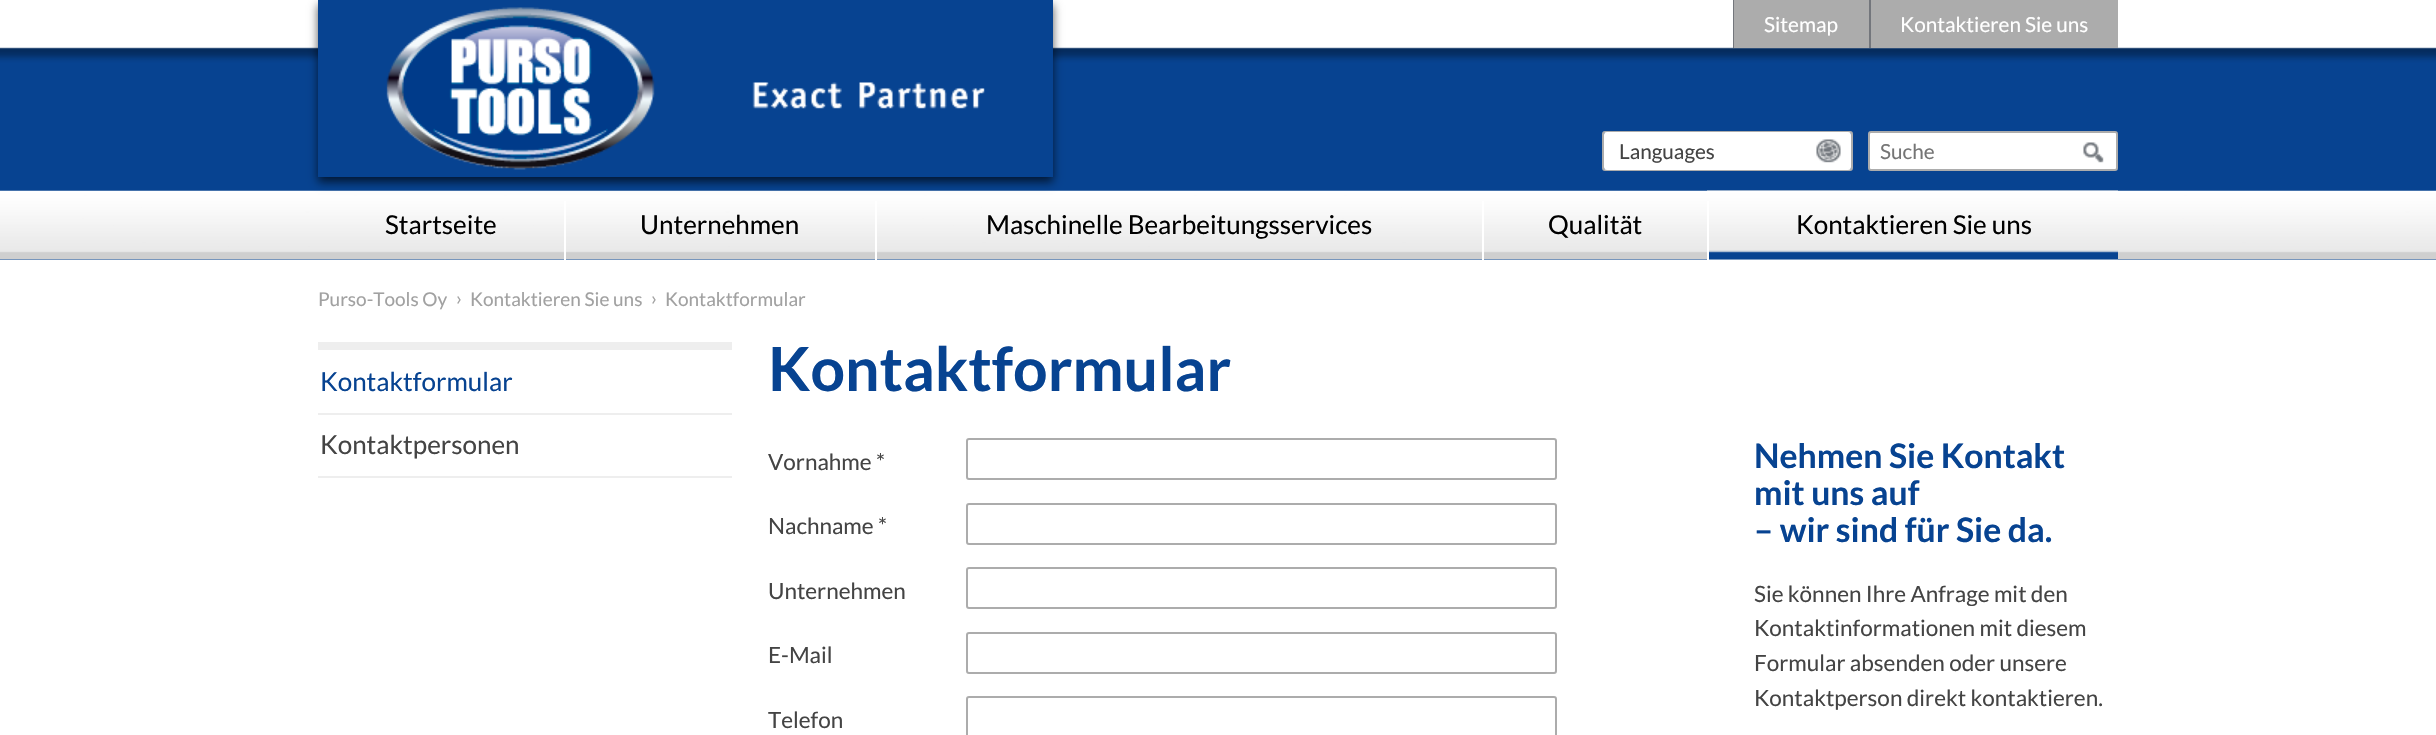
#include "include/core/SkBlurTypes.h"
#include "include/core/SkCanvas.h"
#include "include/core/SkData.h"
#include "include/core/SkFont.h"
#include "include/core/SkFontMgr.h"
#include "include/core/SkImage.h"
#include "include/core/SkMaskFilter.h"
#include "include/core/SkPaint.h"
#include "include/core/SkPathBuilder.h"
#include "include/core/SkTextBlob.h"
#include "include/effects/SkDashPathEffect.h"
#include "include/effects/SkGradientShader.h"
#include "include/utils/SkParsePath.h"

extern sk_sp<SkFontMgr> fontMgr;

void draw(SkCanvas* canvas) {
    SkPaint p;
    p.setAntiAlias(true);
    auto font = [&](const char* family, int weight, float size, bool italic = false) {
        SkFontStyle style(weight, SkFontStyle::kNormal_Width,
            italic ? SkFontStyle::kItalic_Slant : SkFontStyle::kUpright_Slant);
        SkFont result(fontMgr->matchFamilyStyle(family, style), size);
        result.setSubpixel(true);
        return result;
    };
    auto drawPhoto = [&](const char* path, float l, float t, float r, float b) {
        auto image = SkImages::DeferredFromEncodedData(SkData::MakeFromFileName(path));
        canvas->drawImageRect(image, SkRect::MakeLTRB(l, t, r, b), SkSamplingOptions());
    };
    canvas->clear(0xFFFFFFFF);
    drawPhoto("media/1.png", 0, 47, 2436, 260);
    drawPhoto("media/5.png", 0, 190, 2436, 260);
    p.setColor(0xA6000000);
    p.setMaskFilter(SkMaskFilter::MakeBlur(kNormal_SkBlurStyle, 4.5f));
    canvas->drawRect(SkRect::MakeLTRB(318, 5, 1053, 182), p);
    p.setMaskFilter(nullptr);
    p.setColor(0xFF074391);
    canvas->drawRect(SkRect::MakeLTRB(318, 0, 1053, 177), p);
    drawPhoto("media/2.png", 386, 7, 985, 170);
    p.setColor(0xFF73767C);
    canvas->drawRect(SkRect::MakeLTRB(1733, 0, 1734, 48), p);
    p.setColor(0xFFACACAC);
    canvas->drawRect(SkRect::MakeLTRB(1734, 0, 1869, 48), p);
    auto font1 = font("Lato", 400, 20.75f);
    p.setColor(0xFFFFFFFF);
    canvas->drawString("Sitemap", 1764, 32, font1, p);
    p.setColor(0xFF73767C);
    canvas->drawRect(SkRect::MakeLTRB(1869, 0, 1871, 48), p);
    p.setColor(0xFFACACAC);
    canvas->drawRect(SkRect::MakeLTRB(1871, 0, 2118, 48), p);
    p.setColor(0xFFFFFFFF);
    canvas->drawString("Kontaktieren Sie uns", 1900, 32, font1, p);
    p.setStyle(SkPaint::kStroke_Style);
    p.setStrokeWidth(2);
    p.setColor(0xFFACACAC);
    canvas->drawRoundRect(SkRect::MakeLTRB(1603, 132, 1852, 170), 2, 2, p);
    p.setStyle(SkPaint::kFill_Style);
    p.setColor(0xFFFFFFFF);
    canvas->drawRoundRect(SkRect::MakeLTRB(1604, 132, 1851, 170), 3, 3, p);
    drawPhoto("media/3.png", 1816, 139, 1841, 163);
    p.setColor(0xFF444444);
    canvas->drawString("Languages", 1619, 159, font1, p);
    p.setColor(0xFFFFFFFF);
    canvas->drawRoundRect(SkRect::MakeLTRB(1869, 132, 2117, 170), 2, 2, p);
    p.setStyle(SkPaint::kStroke_Style);
    p.setColor(0xFFACACAC);
    canvas->drawRoundRect(SkRect::MakeLTRB(1869, 132, 2117, 170), 2, 2, p);
    p.setStyle(SkPaint::kFill_Style);
    p.setColor(0xFF757575);
    canvas->drawString("Suche", 1880, 159, font1, p);
    drawPhoto("media/4.png", 2083, 142, 2104, 163);
    auto font2 = font("Lato", 400, 26);
    p.setColor(0xFF000000);
    canvas->drawString("Startseite", 385, 234, font2, p);
    p.setColor(0xFFFFFFFF);
    canvas->drawRect(SkRect::MakeLTRB(564, 201, 566, 260), p);
    p.setColor(0xFF000000);
    canvas->drawString("Unternehmen", 640, 234, font2, p);
    p.setColor(0xFFFFFFFF);
    canvas->drawRect(SkRect::MakeLTRB(875, 201, 877, 260), p);
    p.setColor(0xFF000000);
    canvas->drawString("Maschinelle Bearbeitungsservices", 986, 234, font2, p);
    p.setColor(0xFFFFFFFF);
    canvas->drawRect(SkRect::MakeLTRB(1482, 201, 1484, 260), p);
    p.setColor(0xFF000000);
    canvas->drawString("Qualität", 1548, 234, font2, p);
    drawPhoto("media/6.png", 1707, 190, 2118, 260);
    p.setColor(0xFFFFFFFF);
    canvas->drawRect(SkRect::MakeLTRB(1707, 201, 1709, 260), p);
    p.setColor(0xFF000000);
    canvas->drawString("Kontaktieren Sie uns", 1796, 234, font2, p);
    auto font3 = font("Lato", 400, 19);
    p.setColor(0xFFA1A1A1);
    {
        const struct { const char* s; float x, y; } items[] = {
            {"Purso-Tools Oy", 318, 306},
            {"›", 456, 305},
            {"Kontaktieren Sie uns", 470, 306},
            {"›", 651, 305},
            {"Kontaktformular", 665, 306},
        };
        for (auto [s, x, y] : items) {
            canvas->drawString(s, x, y, font3, p);
        }
    }
    p.setColor(0xFFEEEEEE);
    canvas->drawRect(SkRect::MakeLTRB(318, 342, 732, 350), p);
    canvas->drawRect(SkRect::MakeLTRB(318, 413, 732, 415), p);
    p.setColor(0xFF074391);
    canvas->drawString("Kontaktformular", 320, 391, font2, p);
    p.setColor(0xFFEEEEEE);
    canvas->drawRect(SkRect::MakeLTRB(318, 476, 732, 478), p);
    p.setColor(0xFF444444);
    canvas->drawString("Kontaktpersonen", 320, 454, font2, p);
    auto font4 = font("Lato", 700, 60.75f);
    p.setColor(0xFF074391);
    canvas->drawString("Kontaktformular", 768, 391, font4, p);
    auto font5 = font("Lato", 400, 22.5f);
    p.setColor(0xFF444444);
    canvas->drawString("Vornahme *", 768, 470, font5, p);
    p.setStyle(SkPaint::kStroke_Style);
    p.setColor(0xFFACACAC);
    canvas->drawRoundRect(SkRect::MakeLTRB(967, 439, 1556, 479), 2, 2, p);
    p.setStyle(SkPaint::kFill_Style);
    p.setColor(0xFF444444);
    canvas->drawString("Nachname *", 768, 534, font5, p);
    p.setStyle(SkPaint::kStroke_Style);
    p.setColor(0xFFACACAC);
    canvas->drawRoundRect(SkRect::MakeLTRB(967, 504, 1556, 544), 2, 2, p);
    p.setStyle(SkPaint::kFill_Style);
    p.setColor(0xFF444444);
    canvas->drawString("Unternehmen", 768, 599, font5, p);
    p.setStyle(SkPaint::kStroke_Style);
    p.setColor(0xFFACACAC);
    canvas->drawRoundRect(SkRect::MakeLTRB(967, 568, 1556, 608), 2, 2, p);
    p.setStyle(SkPaint::kFill_Style);
    p.setColor(0xFF444444);
    canvas->drawString("E-Mail", 768, 663, font5, p);
    p.setStyle(SkPaint::kStroke_Style);
    p.setColor(0xFFACACAC);
    canvas->drawRoundRect(SkRect::MakeLTRB(967, 633, 1556, 673), 2, 2, p);
    p.setStyle(SkPaint::kFill_Style);
    p.setColor(0xFF444444);
    canvas->drawString("Telefon", 768, 728, font5, p);
    p.setStyle(SkPaint::kStroke_Style);
    p.setColor(0xFFACACAC);
    canvas->drawRoundRect(SkRect::MakeLTRB(967, 697, 1556, 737), 2, 2, p);
    auto font6 = font("Lato", 700, 33.75f);
    p.setStyle(SkPaint::kFill_Style);
    p.setColor(0xFF074391);
    {
        const struct { const char* s; float x, y; } items[] = {
            {"Nehmen Sie Kontakt", 1754, 468},
            {"mit uns auf", 1754, 505},
            {"– wir sind für Sie da.", 1754, 542},
        };
        for (auto [s, x, y] : items) {
            canvas->drawString(s, x, y, font6, p);
        }
    }
    p.setColor(0xFF444444);
    {
        const struct { const char* s; float x, y; } items[] = {
            {"Sie können Ihre Anfrage mit den", 1754, 602},
            {"Kontaktinformationen mit diesem", 1754, 636},
            {"Formular absenden oder unsere", 1754, 671},
            {"Kontaktperson direkt kontaktieren.", 1754, 706},
        };
        for (auto [s, x, y] : items) {
            canvas->drawString(s, x, y, font5, p);
        }
    }
}
